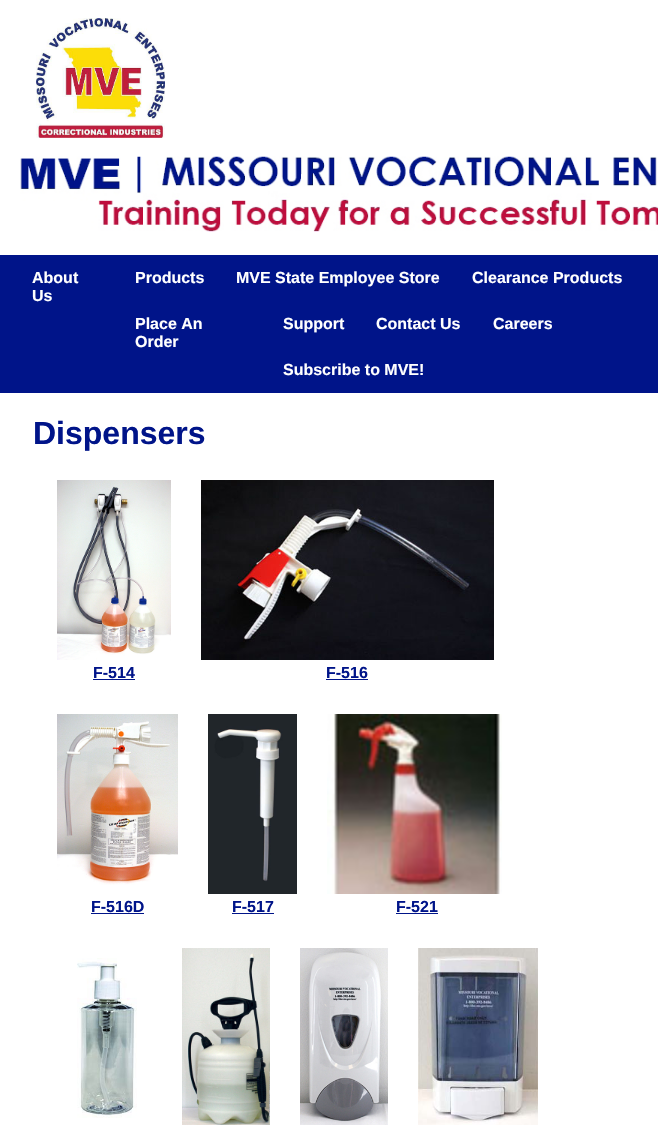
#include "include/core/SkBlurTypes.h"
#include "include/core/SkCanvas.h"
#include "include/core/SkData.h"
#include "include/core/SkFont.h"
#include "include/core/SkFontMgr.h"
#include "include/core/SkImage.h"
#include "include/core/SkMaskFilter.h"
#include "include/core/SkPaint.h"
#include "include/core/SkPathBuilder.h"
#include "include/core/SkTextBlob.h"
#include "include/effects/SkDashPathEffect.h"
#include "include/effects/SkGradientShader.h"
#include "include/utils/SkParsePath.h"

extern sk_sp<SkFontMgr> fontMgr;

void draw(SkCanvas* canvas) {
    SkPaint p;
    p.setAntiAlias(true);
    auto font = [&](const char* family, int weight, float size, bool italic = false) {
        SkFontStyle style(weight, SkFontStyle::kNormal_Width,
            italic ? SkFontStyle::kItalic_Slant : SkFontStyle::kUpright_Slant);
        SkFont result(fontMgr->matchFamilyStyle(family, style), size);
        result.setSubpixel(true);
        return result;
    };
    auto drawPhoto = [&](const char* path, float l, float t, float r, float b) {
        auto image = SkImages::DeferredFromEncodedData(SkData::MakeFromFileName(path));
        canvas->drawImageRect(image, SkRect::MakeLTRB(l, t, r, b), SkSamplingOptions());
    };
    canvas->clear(0xFFFFFFFF);
    drawPhoto("media/1.png", 36, 18, 165, 138);
    drawPhoto("media/2.png", 20, 156, 658, 232);
    p.setColor(0xFF001489);
    canvas->drawRect(SkRect::MakeLTRB(0, 255, 658, 393), p);
    auto font1 = font("Liberation Sans", 700, 16);
    p.setColor(0xFFFFFFFF);
    {
        const struct { const char* s; float x, y; } items[] = {
            {"About", 32, 283},
            {"Us", 32, 301},
            {"Products", 135, 283},
            {"MVE State Employee Store", 236, 283},
            {"Clearance Products", 472, 283},
            {"Place An", 135, 329},
            {"Order", 135, 347},
            {"Support", 283, 329},
            {"Contact Us", 376, 329},
            {"Careers", 493, 329},
            {"Subscribe to MVE!", 283, 375},
        };
        for (auto [s, x, y] : items) {
            canvas->drawString(s, x, y, font1, p);
        }
    }
    auto font2 = font("Liberation Sans", 700, 32);
    p.setColor(0xFF001489);
    canvas->drawString("Dispensers", 33, 444, font2, p);
    drawPhoto("media/3.png", 57, 480, 171, 660);
    canvas->drawString("F-514", 93, 678, font1, p);
    canvas->drawRect(SkRect::MakeLTRB(93, 679, 135, 680), p);
    drawPhoto("media/4.png", 201, 480, 494, 660);
    canvas->drawString("F-516", 326, 678, font1, p);
    canvas->drawRect(SkRect::MakeLTRB(326, 679, 368, 680), p);
    drawPhoto("media/5.png", 57, 714, 178, 885);
    canvas->drawString("F-516D", 91, 912, font1, p);
    canvas->drawRect(SkRect::MakeLTRB(91, 913, 144, 914), p);
    drawPhoto("media/6.png", 208, 714, 297, 894);
    canvas->drawString("F-517", 232, 912, font1, p);
    canvas->drawRect(SkRect::MakeLTRB(232, 913, 274, 914), p);
    drawPhoto("media/7.png", 327, 714, 502, 894);
    canvas->drawString("F-521", 396, 912, font1, p);
    canvas->drawRect(SkRect::MakeLTRB(396, 913, 438, 914), p);
    drawPhoto("media/8.png", 77, 958, 137, 1118);
    drawPhoto("media/9.png", 182, 948, 270, 1125);
    drawPhoto("media/10.png", 300, 948, 388, 1125);
    drawPhoto("media/11.png", 418, 948, 538, 1125);
}
